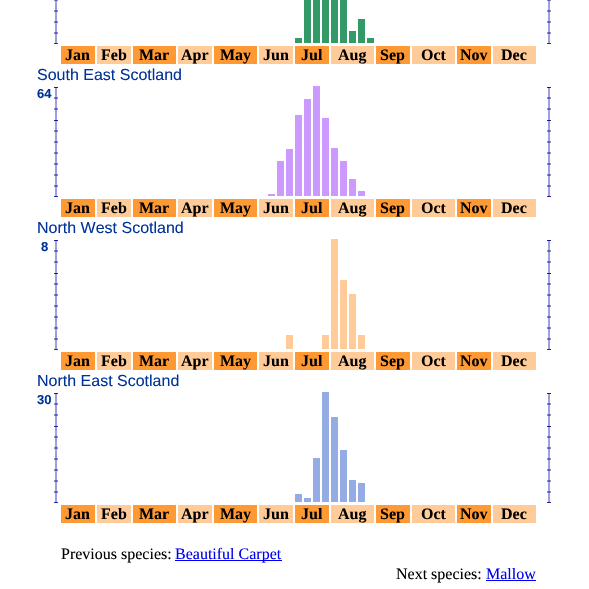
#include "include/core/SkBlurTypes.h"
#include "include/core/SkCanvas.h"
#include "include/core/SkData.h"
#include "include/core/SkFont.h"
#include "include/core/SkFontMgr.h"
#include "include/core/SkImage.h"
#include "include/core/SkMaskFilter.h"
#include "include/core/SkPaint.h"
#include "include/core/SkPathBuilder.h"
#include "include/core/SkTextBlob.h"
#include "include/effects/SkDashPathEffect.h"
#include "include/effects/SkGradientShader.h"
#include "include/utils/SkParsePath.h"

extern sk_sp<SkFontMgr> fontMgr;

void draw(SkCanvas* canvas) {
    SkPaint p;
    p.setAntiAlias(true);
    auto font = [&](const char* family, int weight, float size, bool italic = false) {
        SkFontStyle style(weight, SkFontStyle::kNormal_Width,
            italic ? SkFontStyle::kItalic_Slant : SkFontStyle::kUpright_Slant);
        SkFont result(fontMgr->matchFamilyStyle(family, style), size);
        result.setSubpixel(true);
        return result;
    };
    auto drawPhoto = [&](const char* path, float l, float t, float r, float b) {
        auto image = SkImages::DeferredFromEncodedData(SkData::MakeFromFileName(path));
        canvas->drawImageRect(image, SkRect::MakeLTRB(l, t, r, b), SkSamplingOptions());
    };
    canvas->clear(0xFFFFFFFF);
    drawPhoto("media/1.png", 54, 0, 58, 44);
    {
        const struct { float l, t, r, b; SkColor color; } items[] = {
            {295, 38, 302, 43, 0xFF339966},
            {304, 0, 311, 43, 0xFF339966},
            {313, 0, 320, 43, 0xFF339966},
            {322, 0, 329, 43, 0xFF339966},
            {331, 0, 338, 43, 0xFF339966},
            {340, 0, 347, 43, 0xFF339966},
            {349, 31, 356, 43, 0xFF339966},
            {358, 19, 365, 43, 0xFF339966},
            {367, 38, 374, 43, 0xFF339966},
        };
        for (auto [l, t, r, b, color] : items) {
            p.setColor(color);
            canvas->drawRect(SkRect::MakeLTRB(l, t, r, b), p);
        }
    }
    drawPhoto("media/1.png", 547, 0, 551, 44);
    p.setColor(0xFFFF9933);
    canvas->drawRect(SkRect::MakeLTRB(61, 46, 95, 64), p);
    auto font1 = font("Liberation Serif", 700, 16);
    p.setColor(0xFF000000);
    canvas->drawString("Jan", 65, 60, font1, p);
    p.setColor(0xFFFFCC99);
    canvas->drawRect(SkRect::MakeLTRB(97, 46, 131, 64), p);
    p.setColor(0xFF000000);
    canvas->drawString("Feb", 101, 60, font1, p);
    p.setColor(0xFFFF9933);
    canvas->drawRect(SkRect::MakeLTRB(133, 46, 176, 64), p);
    p.setColor(0xFF000000);
    canvas->drawString("Mar", 139, 60, font1, p);
    p.setColor(0xFFFFCC99);
    canvas->drawRect(SkRect::MakeLTRB(178, 46, 212, 64), p);
    p.setColor(0xFF000000);
    canvas->drawString("Apr", 181, 60, font1, p);
    p.setColor(0xFFFF9933);
    canvas->drawRect(SkRect::MakeLTRB(214, 46, 257, 64), p);
    p.setColor(0xFF000000);
    canvas->drawString("May", 220, 60, font1, p);
    p.setColor(0xFFFFCC99);
    canvas->drawRect(SkRect::MakeLTRB(259, 46, 293, 64), p);
    p.setColor(0xFF000000);
    canvas->drawString("Jun", 263, 60, font1, p);
    p.setColor(0xFFFF9933);
    canvas->drawRect(SkRect::MakeLTRB(295, 46, 329, 64), p);
    p.setColor(0xFF000000);
    canvas->drawString("Jul", 301, 60, font1, p);
    p.setColor(0xFFFFCC99);
    canvas->drawRect(SkRect::MakeLTRB(331, 46, 374, 64), p);
    p.setColor(0xFF000000);
    canvas->drawString("Aug", 338, 60, font1, p);
    p.setColor(0xFFFF9933);
    canvas->drawRect(SkRect::MakeLTRB(376, 46, 410, 64), p);
    p.setColor(0xFF000000);
    canvas->drawString("Sep", 380, 60, font1, p);
    p.setColor(0xFFFFCC99);
    canvas->drawRect(SkRect::MakeLTRB(412, 46, 455, 64), p);
    p.setColor(0xFF000000);
    canvas->drawString("Oct", 421, 60, font1, p);
    p.setColor(0xFFFF9933);
    canvas->drawRect(SkRect::MakeLTRB(457, 46, 491, 64), p);
    p.setColor(0xFF000000);
    canvas->drawString("Nov", 460, 60, font1, p);
    p.setColor(0xFFFFCC99);
    canvas->drawRect(SkRect::MakeLTRB(493, 46, 536, 64), p);
    p.setColor(0xFF000000);
    canvas->drawString("Dec", 501, 60, font1, p);
    auto font2 = font("Liberation Sans", 400, 16);
    p.setColor(0xFF003399);
    canvas->drawString("South East Scotland", 37, 80, font2, p);
    auto font3 = font("Liberation Sans", 700, 13);
    canvas->drawString("64", 37, 98, font3, p);
    drawPhoto("media/2.png", 54, 87, 58, 197);
    p.setColor(0xFFCC99FF);
    canvas->drawRect(SkRect::MakeLTRB(313, 86, 320, 196), p);
    drawPhoto("media/2.png", 547, 87, 551, 197);
    {
        const struct { float l, t, r, b; SkColor color; } items[] = {
            {268, 194, 275, 196, 0xFFCC99FF},
            {277, 161, 284, 196, 0xFFCC99FF},
            {286, 149, 293, 196, 0xFFCC99FF},
            {295, 115, 302, 196, 0xFFCC99FF},
            {304, 99, 311, 196, 0xFFCC99FF},
            {322, 118, 329, 196, 0xFFCC99FF},
            {331, 148, 338, 196, 0xFFCC99FF},
            {340, 161, 347, 196, 0xFFCC99FF},
            {349, 179, 356, 196, 0xFFCC99FF},
            {358, 191, 365, 196, 0xFFCC99FF},
            {61, 199, 95, 217, 0xFFFF9933},
        };
        for (auto [l, t, r, b, color] : items) {
            p.setColor(color);
            canvas->drawRect(SkRect::MakeLTRB(l, t, r, b), p);
        }
    }
    p.setColor(0xFF000000);
    canvas->drawString("Jan", 65, 213, font1, p);
    p.setColor(0xFFFFCC99);
    canvas->drawRect(SkRect::MakeLTRB(97, 199, 131, 217), p);
    p.setColor(0xFF000000);
    canvas->drawString("Feb", 101, 213, font1, p);
    p.setColor(0xFFFF9933);
    canvas->drawRect(SkRect::MakeLTRB(133, 199, 176, 217), p);
    p.setColor(0xFF000000);
    canvas->drawString("Mar", 139, 213, font1, p);
    p.setColor(0xFFFFCC99);
    canvas->drawRect(SkRect::MakeLTRB(178, 199, 212, 217), p);
    p.setColor(0xFF000000);
    canvas->drawString("Apr", 181, 213, font1, p);
    p.setColor(0xFFFF9933);
    canvas->drawRect(SkRect::MakeLTRB(214, 199, 257, 217), p);
    p.setColor(0xFF000000);
    canvas->drawString("May", 220, 213, font1, p);
    p.setColor(0xFFFFCC99);
    canvas->drawRect(SkRect::MakeLTRB(259, 199, 293, 217), p);
    p.setColor(0xFF000000);
    canvas->drawString("Jun", 263, 213, font1, p);
    p.setColor(0xFFFF9933);
    canvas->drawRect(SkRect::MakeLTRB(295, 199, 329, 217), p);
    p.setColor(0xFF000000);
    canvas->drawString("Jul", 301, 213, font1, p);
    p.setColor(0xFFFFCC99);
    canvas->drawRect(SkRect::MakeLTRB(331, 199, 374, 217), p);
    p.setColor(0xFF000000);
    canvas->drawString("Aug", 338, 213, font1, p);
    p.setColor(0xFFFF9933);
    canvas->drawRect(SkRect::MakeLTRB(376, 199, 410, 217), p);
    p.setColor(0xFF000000);
    canvas->drawString("Sep", 380, 213, font1, p);
    p.setColor(0xFFFFCC99);
    canvas->drawRect(SkRect::MakeLTRB(412, 199, 455, 217), p);
    p.setColor(0xFF000000);
    canvas->drawString("Oct", 421, 213, font1, p);
    p.setColor(0xFFFF9933);
    canvas->drawRect(SkRect::MakeLTRB(457, 199, 491, 217), p);
    p.setColor(0xFF000000);
    canvas->drawString("Nov", 460, 213, font1, p);
    p.setColor(0xFFFFCC99);
    canvas->drawRect(SkRect::MakeLTRB(493, 199, 536, 217), p);
    p.setColor(0xFF000000);
    canvas->drawString("Dec", 501, 213, font1, p);
    p.setColor(0xFF003399);
    canvas->drawString("North West Scotland", 37, 233, font2, p);
    canvas->drawString("8", 41, 251, font3, p);
    drawPhoto("media/2.png", 54, 240, 58, 350);
    p.setColor(0xFFFFCC99);
    canvas->drawRect(SkRect::MakeLTRB(331, 239, 338, 349), p);
    drawPhoto("media/2.png", 547, 240, 551, 350);
    {
        const struct { float l, t, r, b; SkColor color; } items[] = {
            {286, 335, 293, 349, 0xFFFFCC99},
            {322, 335, 329, 349, 0xFFFFCC99},
            {340, 280, 347, 349, 0xFFFFCC99},
            {349, 294, 356, 349, 0xFFFFCC99},
            {358, 335, 365, 349, 0xFFFFCC99},
            {61, 352, 95, 370, 0xFFFF9933},
        };
        for (auto [l, t, r, b, color] : items) {
            p.setColor(color);
            canvas->drawRect(SkRect::MakeLTRB(l, t, r, b), p);
        }
    }
    p.setColor(0xFF000000);
    canvas->drawString("Jan", 65, 366, font1, p);
    p.setColor(0xFFFFCC99);
    canvas->drawRect(SkRect::MakeLTRB(97, 352, 131, 370), p);
    p.setColor(0xFF000000);
    canvas->drawString("Feb", 101, 366, font1, p);
    p.setColor(0xFFFF9933);
    canvas->drawRect(SkRect::MakeLTRB(133, 352, 176, 370), p);
    p.setColor(0xFF000000);
    canvas->drawString("Mar", 139, 366, font1, p);
    p.setColor(0xFFFFCC99);
    canvas->drawRect(SkRect::MakeLTRB(178, 352, 212, 370), p);
    p.setColor(0xFF000000);
    canvas->drawString("Apr", 181, 366, font1, p);
    p.setColor(0xFFFF9933);
    canvas->drawRect(SkRect::MakeLTRB(214, 352, 257, 370), p);
    p.setColor(0xFF000000);
    canvas->drawString("May", 220, 366, font1, p);
    p.setColor(0xFFFFCC99);
    canvas->drawRect(SkRect::MakeLTRB(259, 352, 293, 370), p);
    p.setColor(0xFF000000);
    canvas->drawString("Jun", 263, 366, font1, p);
    p.setColor(0xFFFF9933);
    canvas->drawRect(SkRect::MakeLTRB(295, 352, 329, 370), p);
    p.setColor(0xFF000000);
    canvas->drawString("Jul", 301, 366, font1, p);
    p.setColor(0xFFFFCC99);
    canvas->drawRect(SkRect::MakeLTRB(331, 352, 374, 370), p);
    p.setColor(0xFF000000);
    canvas->drawString("Aug", 338, 366, font1, p);
    p.setColor(0xFFFF9933);
    canvas->drawRect(SkRect::MakeLTRB(376, 352, 410, 370), p);
    p.setColor(0xFF000000);
    canvas->drawString("Sep", 380, 366, font1, p);
    p.setColor(0xFFFFCC99);
    canvas->drawRect(SkRect::MakeLTRB(412, 352, 455, 370), p);
    p.setColor(0xFF000000);
    canvas->drawString("Oct", 421, 366, font1, p);
    p.setColor(0xFFFF9933);
    canvas->drawRect(SkRect::MakeLTRB(457, 352, 491, 370), p);
    p.setColor(0xFF000000);
    canvas->drawString("Nov", 460, 366, font1, p);
    p.setColor(0xFFFFCC99);
    canvas->drawRect(SkRect::MakeLTRB(493, 352, 536, 370), p);
    p.setColor(0xFF000000);
    canvas->drawString("Dec", 501, 366, font1, p);
    p.setColor(0xFF003399);
    canvas->drawString("North East Scotland", 37, 386, font2, p);
    canvas->drawString("30", 37, 404, font3, p);
    drawPhoto("media/2.png", 54, 393, 58, 503);
    p.setColor(0xFF94ABE4);
    canvas->drawRect(SkRect::MakeLTRB(322, 392, 329, 502), p);
    drawPhoto("media/2.png", 547, 393, 551, 503);
    {
        const struct { float l, t, r, b; SkColor color; } items[] = {
            {295, 494, 302, 502, 0xFF94ABE4},
            {304, 498, 311, 502, 0xFF94ABE4},
            {313, 458, 320, 502, 0xFF94ABE4},
            {331, 417, 338, 502, 0xFF94ABE4},
            {340, 450, 347, 502, 0xFF94ABE4},
            {349, 480, 356, 502, 0xFF94ABE4},
            {358, 483, 365, 502, 0xFF94ABE4},
            {61, 505, 95, 523, 0xFFFF9933},
        };
        for (auto [l, t, r, b, color] : items) {
            p.setColor(color);
            canvas->drawRect(SkRect::MakeLTRB(l, t, r, b), p);
        }
    }
    p.setColor(0xFF000000);
    canvas->drawString("Jan", 65, 519, font1, p);
    p.setColor(0xFFFFCC99);
    canvas->drawRect(SkRect::MakeLTRB(97, 505, 131, 523), p);
    p.setColor(0xFF000000);
    canvas->drawString("Feb", 101, 519, font1, p);
    p.setColor(0xFFFF9933);
    canvas->drawRect(SkRect::MakeLTRB(133, 505, 176, 523), p);
    p.setColor(0xFF000000);
    canvas->drawString("Mar", 139, 519, font1, p);
    p.setColor(0xFFFFCC99);
    canvas->drawRect(SkRect::MakeLTRB(178, 505, 212, 523), p);
    p.setColor(0xFF000000);
    canvas->drawString("Apr", 181, 519, font1, p);
    p.setColor(0xFFFF9933);
    canvas->drawRect(SkRect::MakeLTRB(214, 505, 257, 523), p);
    p.setColor(0xFF000000);
    canvas->drawString("May", 220, 519, font1, p);
    p.setColor(0xFFFFCC99);
    canvas->drawRect(SkRect::MakeLTRB(259, 505, 293, 523), p);
    p.setColor(0xFF000000);
    canvas->drawString("Jun", 263, 519, font1, p);
    p.setColor(0xFFFF9933);
    canvas->drawRect(SkRect::MakeLTRB(295, 505, 329, 523), p);
    p.setColor(0xFF000000);
    canvas->drawString("Jul", 301, 519, font1, p);
    p.setColor(0xFFFFCC99);
    canvas->drawRect(SkRect::MakeLTRB(331, 505, 374, 523), p);
    p.setColor(0xFF000000);
    canvas->drawString("Aug", 338, 519, font1, p);
    p.setColor(0xFFFF9933);
    canvas->drawRect(SkRect::MakeLTRB(376, 505, 410, 523), p);
    p.setColor(0xFF000000);
    canvas->drawString("Sep", 380, 519, font1, p);
    p.setColor(0xFFFFCC99);
    canvas->drawRect(SkRect::MakeLTRB(412, 505, 455, 523), p);
    p.setColor(0xFF000000);
    canvas->drawString("Oct", 421, 519, font1, p);
    p.setColor(0xFFFF9933);
    canvas->drawRect(SkRect::MakeLTRB(457, 505, 491, 523), p);
    p.setColor(0xFF000000);
    canvas->drawString("Nov", 460, 519, font1, p);
    p.setColor(0xFFFFCC99);
    canvas->drawRect(SkRect::MakeLTRB(493, 505, 536, 523), p);
    p.setColor(0xFF000000);
    canvas->drawString("Dec", 501, 519, font1, p);
    auto font4 = font("Liberation Serif", 400, 16);
    canvas->drawString("Previous species:", 61, 559, font4, p);
    p.setColor(0xFF0000EE);
    canvas->drawRect(SkRect::MakeLTRB(175, 560, 282, 561), p);
    canvas->drawString("Beautiful Carpet", 175, 559, font4, p);
    p.setColor(0xFF000000);
    canvas->drawString("Next species:", 396, 579, font4, p);
    p.setColor(0xFF0000EE);
    canvas->drawString("Mallow", 486, 579, font4, p);
    canvas->drawRect(SkRect::MakeLTRB(486, 580, 536, 581), p);
}
